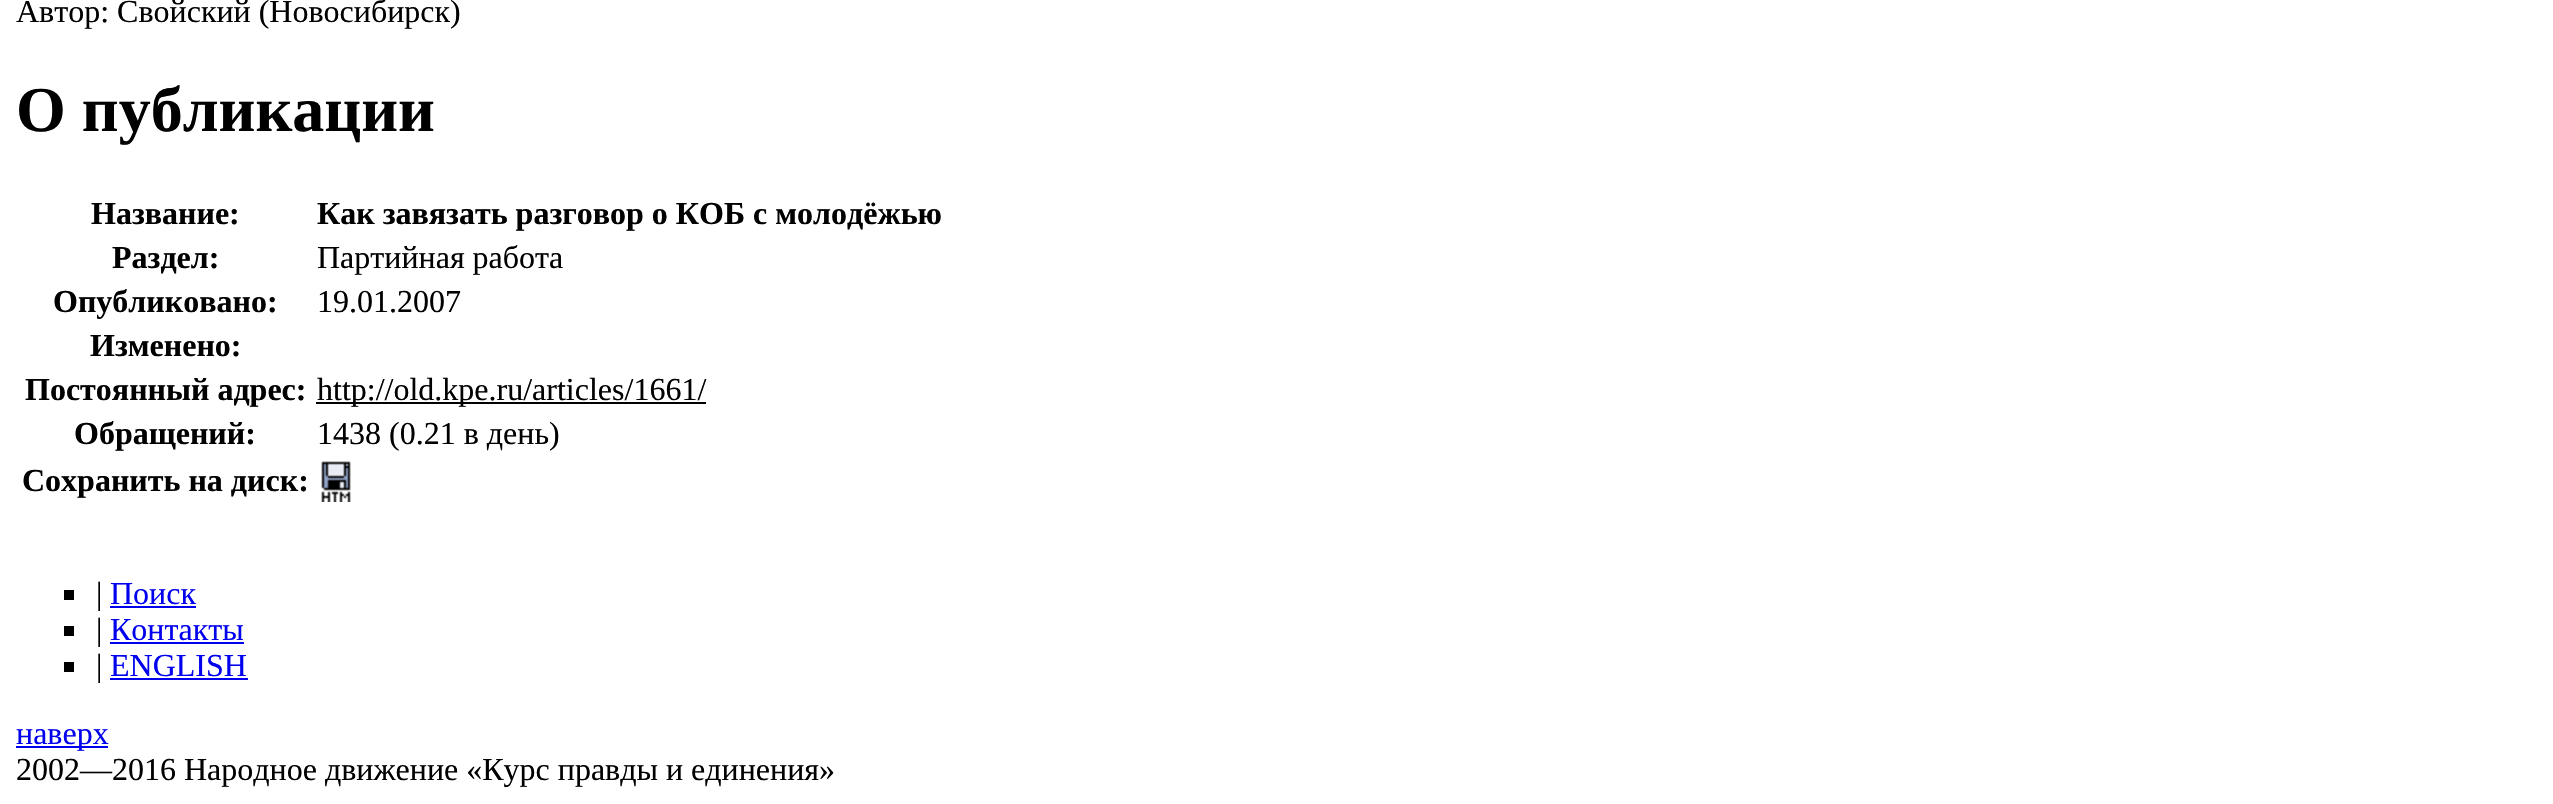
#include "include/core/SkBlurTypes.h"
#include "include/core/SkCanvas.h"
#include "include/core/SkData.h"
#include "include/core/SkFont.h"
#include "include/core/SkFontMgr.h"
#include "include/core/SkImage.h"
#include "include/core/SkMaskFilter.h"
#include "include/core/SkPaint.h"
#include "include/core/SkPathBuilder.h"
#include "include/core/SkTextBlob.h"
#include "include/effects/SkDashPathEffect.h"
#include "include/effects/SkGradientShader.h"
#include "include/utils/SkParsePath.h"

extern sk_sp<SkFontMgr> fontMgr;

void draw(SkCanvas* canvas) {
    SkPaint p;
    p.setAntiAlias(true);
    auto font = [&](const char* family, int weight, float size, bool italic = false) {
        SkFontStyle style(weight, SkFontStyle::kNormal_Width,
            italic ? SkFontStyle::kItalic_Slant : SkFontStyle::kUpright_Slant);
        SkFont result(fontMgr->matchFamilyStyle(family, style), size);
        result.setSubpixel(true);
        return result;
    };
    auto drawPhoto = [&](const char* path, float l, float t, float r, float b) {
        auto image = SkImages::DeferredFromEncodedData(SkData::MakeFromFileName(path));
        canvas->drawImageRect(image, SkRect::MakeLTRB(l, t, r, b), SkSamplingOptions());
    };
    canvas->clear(0xFFFFFFFF);
    auto font1 = font("Liberation Serif", 400, 32);
    p.setColor(0xFF000000);
    canvas->drawString("Автор: Свойский (Новосибирск)", 16, 22, font1, p);
    auto font2 = font("Liberation Serif", 700, 64);
    canvas->drawString("О публикации", 16, 131, font2, p);
    auto font3 = font("Liberation Serif", 700, 32);
    {
        const struct { const char* s; float x, y; } items[] = {
            {"Название:", 91, 224},
            {"Как завязать разговор о КОБ с молодёжью", 317, 224},
            {"Раздел:", 112, 268},
        };
        for (auto [s, x, y] : items) {
            canvas->drawString(s, x, y, font3, p);
        }
    }
    canvas->drawString("Партийная работа", 317, 268, font1, p);
    canvas->drawString("Опубликовано:", 53, 312, font3, p);
    canvas->drawString("19.01.2007", 317, 312, font1, p);
    canvas->drawString("Изменено:", 90, 356, font3, p);
    canvas->drawString("Постоянный адрес:", 25, 400, font3, p);
    canvas->drawRect(SkRect::MakeLTRB(316, 402, 706, 404), p);
    canvas->drawString("http://old.kpe.ru/articles/1661/", 317, 400, font1, p);
    canvas->drawString("Обращений:", 74, 444, font3, p);
    canvas->drawString("1438 (0.21 в день)", 317, 444, font1, p);
    canvas->drawString("Сохранить на диск:", 22, 491, font3, p);
    drawPhoto("media/1.png", 321, 461, 351, 502);
    canvas->drawRect(SkRect::MakeLTRB(64, 590, 74, 600), p);
    canvas->drawString("|", 96, 604, font1, p);
    p.setColor(0xFF0000EE);
    canvas->drawString("Поиск", 110, 604, font1, p);
    canvas->drawRect(SkRect::MakeLTRB(110, 606, 196, 608), p);
    p.setColor(0xFF000000);
    canvas->drawRect(SkRect::MakeLTRB(64, 626, 74, 636), p);
    canvas->drawString("|", 96, 640, font1, p);
    p.setColor(0xFF0000EE);
    canvas->drawString("Контакты", 110, 640, font1, p);
    canvas->drawRect(SkRect::MakeLTRB(110, 642, 244, 644), p);
    p.setColor(0xFF000000);
    canvas->drawRect(SkRect::MakeLTRB(64, 662, 74, 672), p);
    canvas->drawString("|", 96, 676, font1, p);
    p.setColor(0xFF0000EE);
    canvas->drawString("ENGLISH", 110, 676, font1, p);
    canvas->drawRect(SkRect::MakeLTRB(110, 678, 248, 680), p);
    canvas->drawRect(SkRect::MakeLTRB(16, 746, 108, 748), p);
    canvas->drawString("наверх", 16, 744, font1, p);
    p.setColor(0xFF000000);
    canvas->drawString("2002—2016 Народное движение «Курс правды и единения»", 16, 780, font1, p);
}
